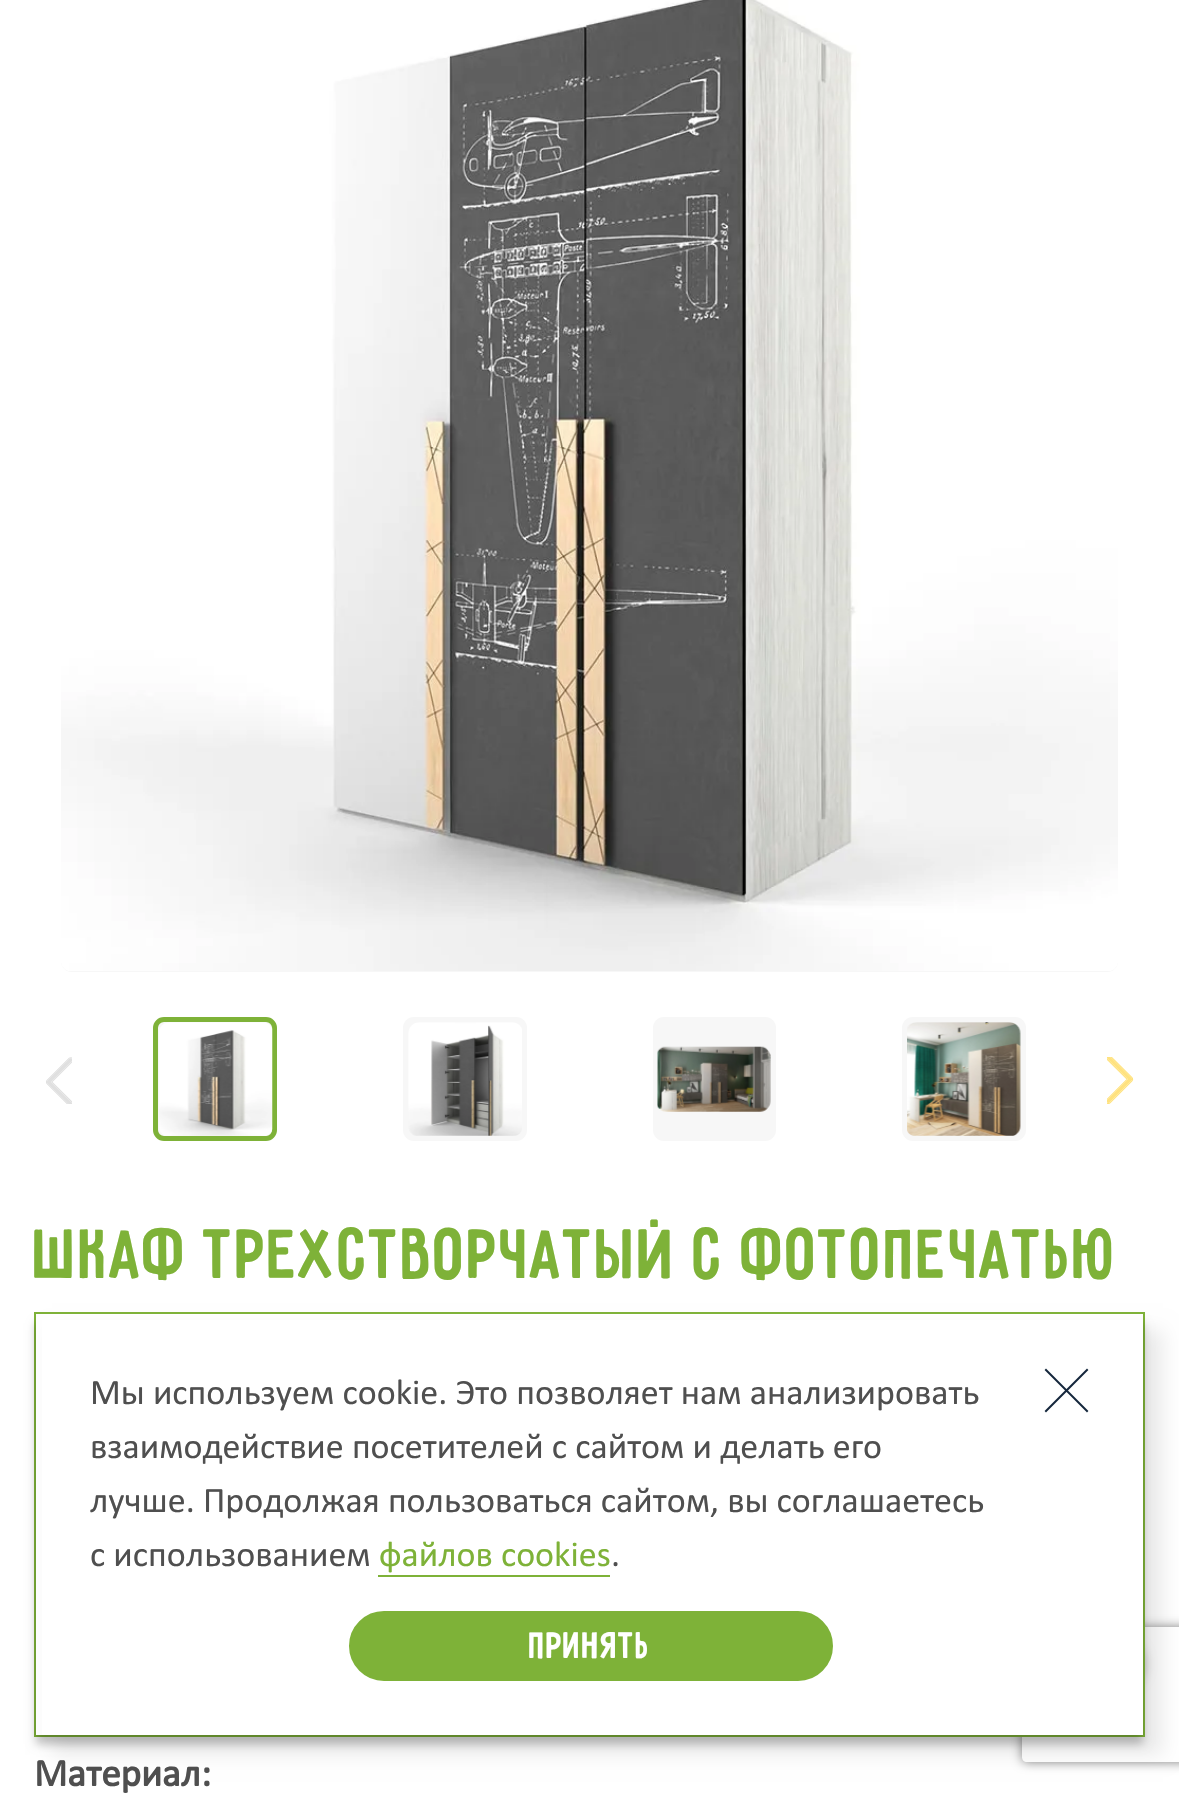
#include "include/core/SkBlurTypes.h"
#include "include/core/SkCanvas.h"
#include "include/core/SkData.h"
#include "include/core/SkFont.h"
#include "include/core/SkFontMgr.h"
#include "include/core/SkImage.h"
#include "include/core/SkMaskFilter.h"
#include "include/core/SkPaint.h"
#include "include/core/SkPathBuilder.h"
#include "include/core/SkTextBlob.h"
#include "include/effects/SkDashPathEffect.h"
#include "include/effects/SkGradientShader.h"
#include "include/utils/SkParsePath.h"

extern sk_sp<SkFontMgr> fontMgr;

void draw(SkCanvas* canvas) {
    SkPaint p;
    p.setAntiAlias(true);
    auto font = [&](const char* family, int weight, float size, bool italic = false) {
        SkFontStyle style(weight, SkFontStyle::kNormal_Width,
            italic ? SkFontStyle::kItalic_Slant : SkFontStyle::kUpright_Slant);
        SkFont result(fontMgr->matchFamilyStyle(family, style), size);
        result.setSubpixel(true);
        return result;
    };
    auto drawPhoto = [&](const char* path, float l, float t, float r, float b) {
        auto image = SkImages::DeferredFromEncodedData(SkData::MakeFromFileName(path));
        canvas->drawImageRect(image, SkRect::MakeLTRB(l, t, r, b), SkSamplingOptions());
    };
    canvas->clear(0xFFFFFFFF);
    p.setColor(0xFFF7F7F7);
    canvas->drawRoundRect(SkRect::MakeLTRB(61, -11, 1118, 972), 11, 11, p);
    drawPhoto("media/1.png", 61, 0, 1118, 971);
    canvas->drawRoundRect(SkRect::MakeLTRB(155.5f, 1019.5f, 274.5f, 1138.5f), 8.5f, 8.5f, p);
    p.setStyle(SkPaint::kStroke_Style);
    p.setStrokeWidth(5);
    p.setColor(0xFF7EB238);
    canvas->drawRoundRect(SkRect::MakeLTRB(155.5f, 1019.5f, 274.5f, 1138.5f), 8.5f, 8.5f, p);
    drawPhoto("media/2.png", 159, 1022, 273, 1136);
    p.setStyle(SkPaint::kFill_Style);
    p.setColor(0xFFF7F7F7);
    canvas->drawRoundRect(SkRect::MakeLTRB(403, 1017, 527, 1141), 11, 11, p);
    drawPhoto("media/3.png", 408, 1022, 522, 1136);
    canvas->drawRoundRect(SkRect::MakeLTRB(653, 1017, 776, 1141), 11, 11, p);
    drawPhoto("media/4.png", 657, 1046, 771, 1112);
    canvas->drawRoundRect(SkRect::MakeLTRB(902, 1017, 1026, 1141), 11, 11, p);
    drawPhoto("media/5.png", 907, 1022, 1021, 1136);
    drawPhoto("media/6.png", 46, 1057, 72, 1104);
    drawPhoto("media/7.png", 1107, 1057, 1134, 1104);
    auto font1 = font("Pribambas", 400, 76.5f);
    p.setColor(0xFF7EB238);
    canvas->drawString("Шкаф трехстворчатый с фотопечатью", 34, 1278, font1, p);
    p.setColor(0xFFE0E0E0);
    p.setMaskFilter(SkMaskFilter::MakeBlur(kNormal_SkBlurStyle, 4.5f));
    canvas->drawRoundRect(SkRect::MakeLTRB(1091, 1636, 1148, 1692), 28, 28, p);
    p.setMaskFilter(nullptr);
    auto font2 = font("Calibri", 700, 39);
    p.setColor(0xFF4F4F4F);
    canvas->drawString("Материал:", 34, 1786, font2, p);
    p.setColor(0x14000000);
    p.setMaskFilter(SkMaskFilter::MakeBlur(kNormal_SkBlurStyle, 9));
    canvas->drawRect(SkRect::MakeLTRB(52, 1330, 1163, 1755), p);
    p.setMaskFilter(nullptr);
    canvas->save();
    canvas->clipPath(SkPathBuilder(SkPathFillType::kEvenOdd).moveTo(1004, 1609).lineTo(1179, 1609).lineTo(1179, 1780).lineTo(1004, 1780).close().moveTo(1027, 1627).lineTo(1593, 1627).cubicTo(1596, 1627, 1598, 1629, 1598, 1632).lineTo(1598, 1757).cubicTo(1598, 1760, 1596, 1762, 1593, 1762).lineTo(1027, 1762).cubicTo(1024, 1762, 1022, 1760, 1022, 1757).lineTo(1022, 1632).cubicTo(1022, 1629, 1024, 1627, 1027, 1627).close().detach(), true);
    p.setColor(0xFF808080);
    p.setMaskFilter(SkMaskFilter::MakeBlur(kNormal_SkBlurStyle, 5.5f));
    canvas->drawRoundRect(SkRect::MakeLTRB(1022, 1627, 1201, 1762), 5, 5, p);
    p.setMaskFilter(nullptr);
    canvas->restore();
    p.setColor(0xFFFFFFFF);
    canvas->drawRect(SkRect::MakeLTRB(42, 1320, 1143, 1735), p);
    p.setStyle(SkPaint::kStroke_Style);
    p.setStrokeWidth(2);
    p.setColor(0xFF7EB238);
    canvas->drawRect(SkRect::MakeLTRB(35, 1313, 1144, 1736), p);
    p.setStyle(SkPaint::kFill_Style);
    canvas->drawRect(SkRect::MakeLTRB(378, 1575, 610, 1577), p);
    p.setStyle(SkPaint::kStroke_Style);
    p.setStrokeCap(SkPaint::kSquare_Cap);
    p.setColor(0xFF15273C);
    canvas->drawPath(SkPathBuilder().moveTo(1066.5f, 1390.5f).lineTo(1046, 1411).moveTo(1066.5f, 1390.5f).lineTo(1046, 1370).moveTo(1066.5f, 1390.5f).lineTo(1087, 1411).moveTo(1066.5f, 1390.5f).lineTo(1087, 1370).detach(), p);
    p.setStyle(SkPaint::kFill_Style);
    p.setColor(0xFF7EB238);
    canvas->drawRoundRect(SkRect::MakeLTRB(351.5f, 1613.5f, 830.5f, 1678.5f), 32.5f, 32.5f, p);
    p.setStyle(SkPaint::kStroke_Style);
    p.setStrokeWidth(5);
    p.setStrokeCap(SkPaint::kButt_Cap);
    canvas->drawRoundRect(SkRect::MakeLTRB(351.5f, 1613.5f, 830.5f, 1678.5f), 32.5f, 32.5f, p);
    canvas->save();
    canvas->clipPath(SkPathBuilder(SkPathFillType::kEvenOdd).moveTo(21, 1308).lineTo(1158, 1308).lineTo(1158, 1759).lineTo(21, 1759).close().moveTo(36, 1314).lineTo(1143, 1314).lineTo(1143, 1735).lineTo(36, 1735).close().detach(), true);
    p.setStyle(SkPaint::kFill_Style);
    p.setColor(0x40000000);
    p.setMaskFilter(SkMaskFilter::MakeBlur(kNormal_SkBlurStyle, 4.5f));
    canvas->drawRect(SkRect::MakeLTRB(36, 1323, 1143, 1744), p);
    p.setMaskFilter(nullptr);
    canvas->restore();
    auto font3 = font("Calibri", 400, 36);
    p.setColor(0xFF4F4F4F);
    {
        const struct { const char* s; float x, y; } items[] = {
            {"Мы используем cookie. Это позволяет нам анализировать", 90, 1404},
            {"взаимодействие посетителей с сайтом и делать его", 90, 1458},
            {"лучше. Продолжая пользоваться сайтом, вы соглашаетесь", 90, 1512},
            {"с использованием", 90, 1566},
        };
        for (auto [s, x, y] : items) {
            canvas->drawString(s, x, y, font3, p);
        }
    }
    p.setColor(0xFF7EB238);
    canvas->drawString("файлов cookies", 379, 1566, font3, p);
    p.setColor(0xFF4F4F4F);
    canvas->drawString(".", 611, 1566, font3, p);
    auto font4 = font("Pribambas", 400, 40.5f);
    p.setColor(0xFFFFFFFF);
    canvas->drawString("Принять", 529, 1658, font4, p);
}
